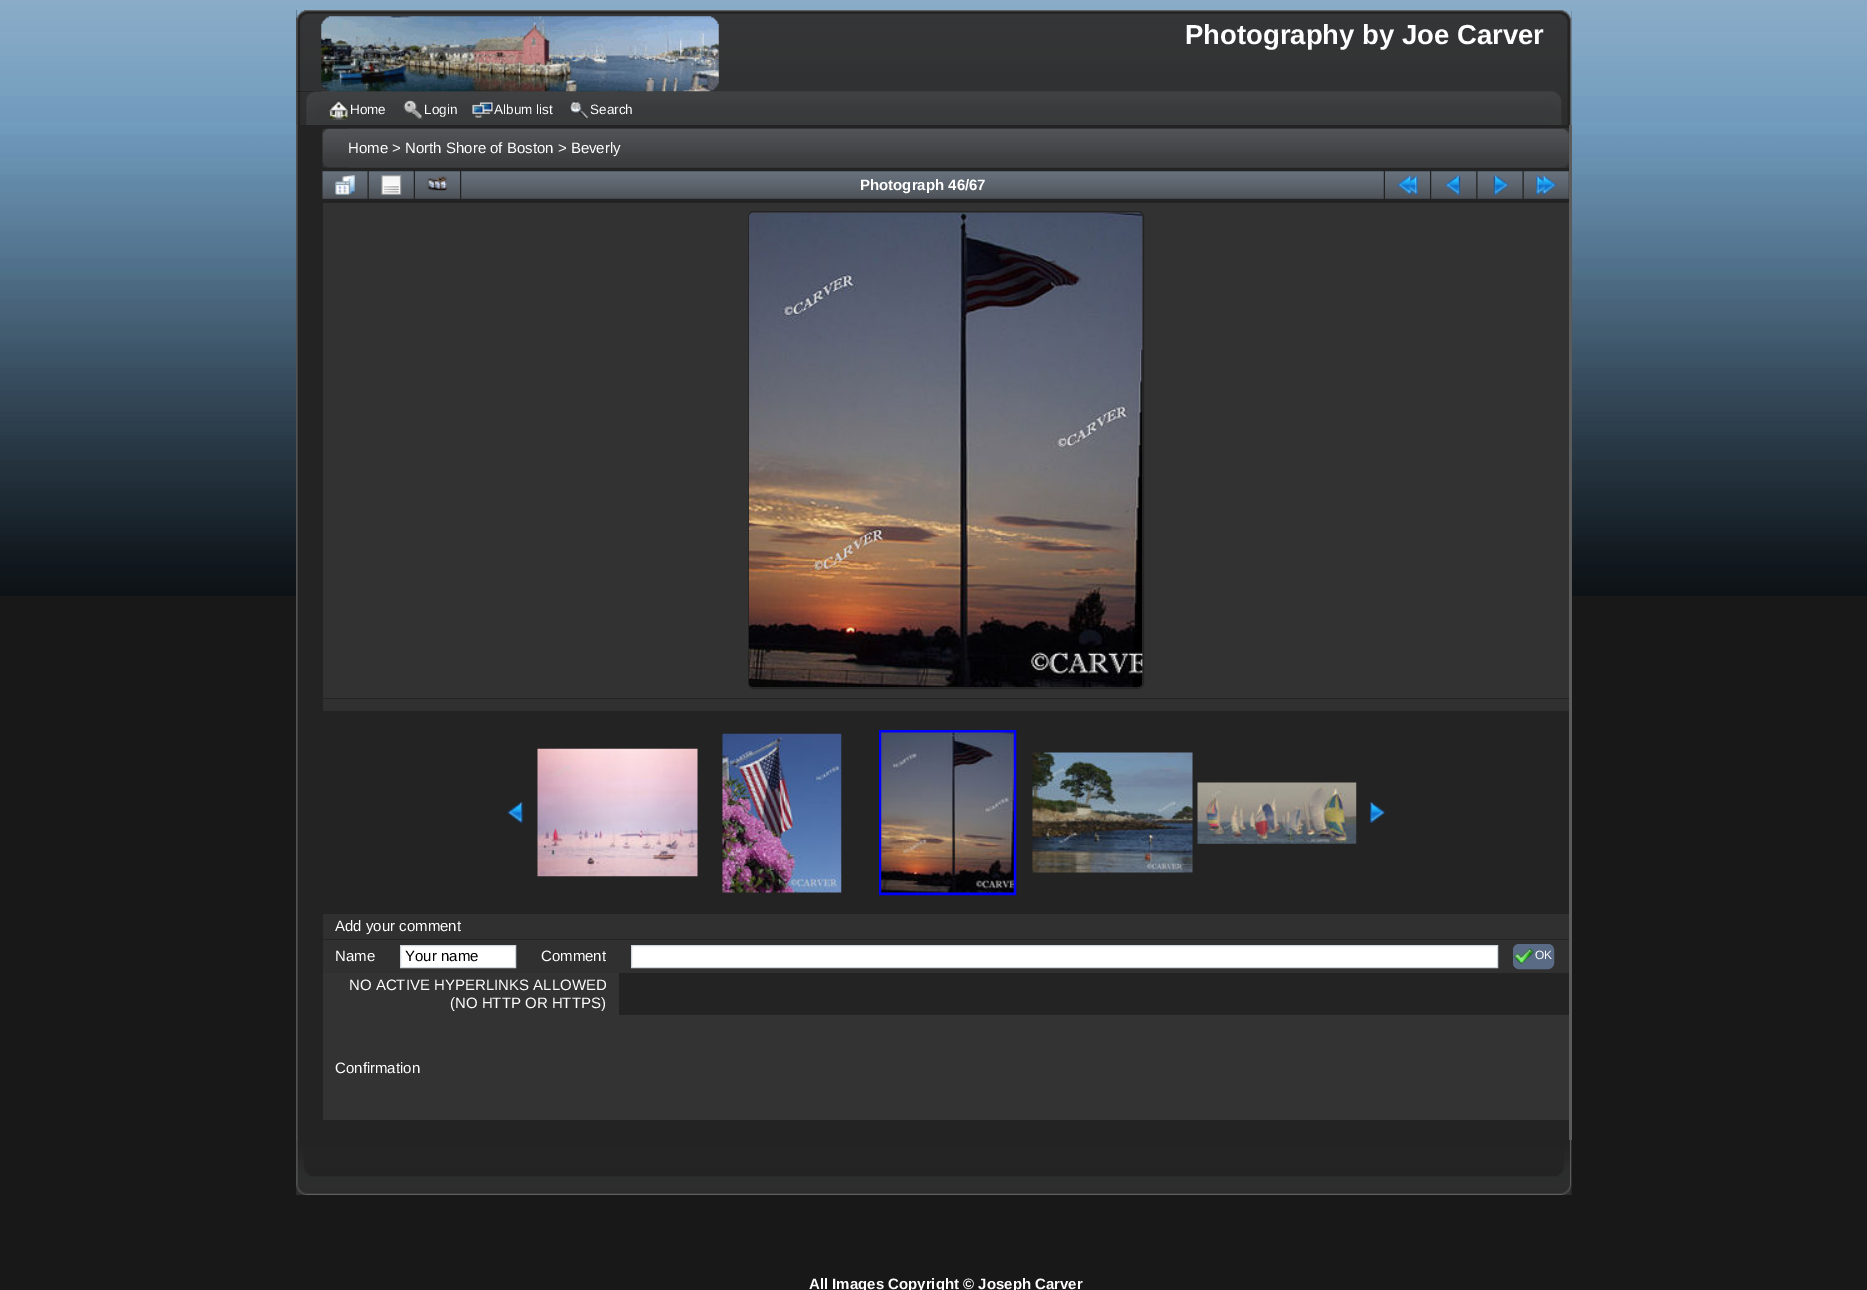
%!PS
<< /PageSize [1867 1290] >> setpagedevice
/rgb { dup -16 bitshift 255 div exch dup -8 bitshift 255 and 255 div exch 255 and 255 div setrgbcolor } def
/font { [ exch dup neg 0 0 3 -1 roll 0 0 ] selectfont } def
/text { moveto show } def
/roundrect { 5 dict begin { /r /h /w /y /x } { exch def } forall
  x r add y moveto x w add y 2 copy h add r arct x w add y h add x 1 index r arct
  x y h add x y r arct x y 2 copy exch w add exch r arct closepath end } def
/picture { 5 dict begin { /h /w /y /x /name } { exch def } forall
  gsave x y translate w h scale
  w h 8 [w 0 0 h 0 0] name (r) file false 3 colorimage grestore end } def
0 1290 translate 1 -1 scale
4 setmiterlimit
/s1 { /LiberationSans-Bold 27.5 font 16#FFFFFF rgb } def
/s2 { /LiberationSans-Regular 13.5 font 16#FFFFFF rgb } def
/s3 { /LiberationSans-Regular 15 font 16#FFFFFF rgb } def
/s4 { /LiberationSans-Bold 15 font 16#FFFFFF rgb } def
/s5 { /LiberationSans-Regular 15 font 16#000000 rgb } def
/s6 { /LiberationSans-Regular 12 font 16#FFFFFF rgb } def
16#181818 rgb
0 0 1867 1290 rectfill
(pic1.raw) 0 0 1867 596 picture
(pic2.raw) 296 10 1276 82 picture
(pic3.raw) 321 10 1251 82 picture
16#010101 rgb
296 91 1275 34 rectfill
(pic5.raw) 296 91 1276 34 picture
(pic6.raw) 321 91 1251 34 picture
(pic4.raw) 321 16 398 76 picture
s1
(Photography by Joe Carver) 1185 44 text
(pic7.raw) 328 100 21 20 picture
s2
(Home) 350 114 text
(pic8.raw) 403 100 20 20 picture
(Login) 424 114 text
(pic9.raw) 472 102 21 16 picture
(Album list) 494 114 text
(pic10.raw) 570 101 19 18 picture
(Search) 590 114 text
(pic11.raw) 296 125 1273 1015 picture
16#5B5B5B rgb
1569 125 3 1015 rectfill
(pic12.raw) 322 128 1247 40 picture
(pic13.raw) 347 128 1222 40 picture
s3
(Home > North Shore of Boston > Beverly) 348 153 text
(pic14.raw) 322 171 46 28 picture
(pic15.raw) 335 175 20 20 picture
(pic16.raw) 368 171 46 28 picture
(pic17.raw) 381 175 21 20 picture
(pic18.raw) 415 171 45 28 picture
(pic19.raw) 427 176 21 15 picture
(pic20.raw) 461 171 923 28 picture
s4
(Photograph 46/67) 860 190 text
(pic18.raw) 1385 171 45 28 picture
(pic21.raw) 1397 175 21 20 picture
(pic22.raw) 1431 171 46 28 picture
(pic23.raw) 1445 175 16 20 picture
(pic14.raw) 1477 171 46 28 picture
(pic24.raw) 1493 175 16 20 picture
(pic16.raw) 1523 171 46 28 picture
(pic25.raw) 1536 175 21 20 picture
16#323232 rgb
323 203 1246 495 rectfill
16#232323 rgb
748.5 211.5 395 477 5.5 roundrect stroke
(pic26.raw) 748 212 395 476 picture
16#303030 rgb
323 699 1246 12 rectfill
(pic27.raw) 507 802 16 21 picture
(pic28.raw) 537 748 161 129 picture
(pic29.raw) 722 733 120 160 picture
16#0000FF rgb
3 setlinewidth
880.5 731.5 134 162 rectstroke
(pic30.raw) 881 732 133 161 picture
(pic31.raw) 1032 752 161 121 picture
(pic32.raw) 1197 782 160 62 picture
(pic33.raw) 1369 802 17 21 picture
16#303030 rgb
323 914 1246 25 rectfill
s3
(Add your comment) 335 931 text
16#303030 rgb
323 940 1246 33 rectfill
s3
(Name) 335 961 text
400.5 945.5 moveto 515.5 945.5 lineto 515.5 967.5 lineto 400.5 967.5 lineto closepath gsave fill grestore
16#D1D7DC rgb
1 setlinewidth
stroke
s5
(Your name) 405 961 text
s3
(Comment) 541 961 text
631.5 945.5 moveto 1497.5 945.5 lineto 1497.5 967.5 lineto 631.5 967.5 lineto closepath gsave fill grestore
16#D1D7DC rgb
stroke
16#5A6C85 rgb
1513.5 944.5 40 24 5.5 roundrect gsave fill grestore
stroke
(pic34.raw) 1513 948 21 16 picture
s6
(OK) 1535 959 text
16#333333 rgb
323 973 296 147 rectfill
s3
(NO ACTIVE HYPERLINKS ALLOWED) 349 990 text
(\(NO HTTP OR HTTPS\)) 450 1008 text
(Confirmation) 335 1073 text
16#333333 rgb
619 1015 950 105 rectfill
(pic35.raw) 296 1140 1276 55 picture
(pic36.raw) 1557 1140 15 55 picture
s4
(All Images Copyright © Joseph Carver) 809 1289 text
showpage
